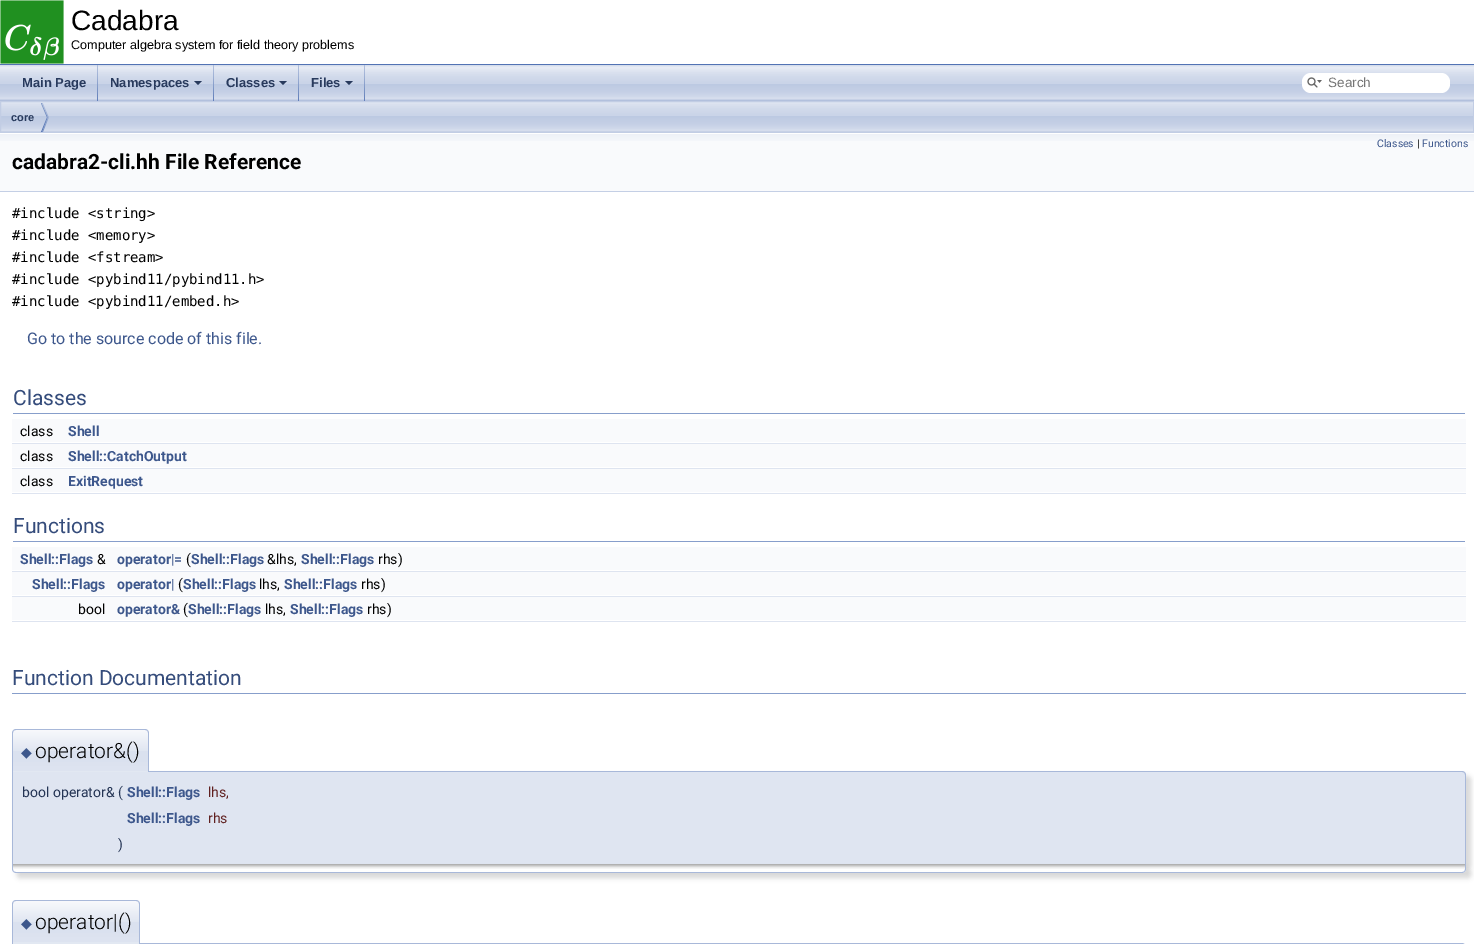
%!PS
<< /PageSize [1474 944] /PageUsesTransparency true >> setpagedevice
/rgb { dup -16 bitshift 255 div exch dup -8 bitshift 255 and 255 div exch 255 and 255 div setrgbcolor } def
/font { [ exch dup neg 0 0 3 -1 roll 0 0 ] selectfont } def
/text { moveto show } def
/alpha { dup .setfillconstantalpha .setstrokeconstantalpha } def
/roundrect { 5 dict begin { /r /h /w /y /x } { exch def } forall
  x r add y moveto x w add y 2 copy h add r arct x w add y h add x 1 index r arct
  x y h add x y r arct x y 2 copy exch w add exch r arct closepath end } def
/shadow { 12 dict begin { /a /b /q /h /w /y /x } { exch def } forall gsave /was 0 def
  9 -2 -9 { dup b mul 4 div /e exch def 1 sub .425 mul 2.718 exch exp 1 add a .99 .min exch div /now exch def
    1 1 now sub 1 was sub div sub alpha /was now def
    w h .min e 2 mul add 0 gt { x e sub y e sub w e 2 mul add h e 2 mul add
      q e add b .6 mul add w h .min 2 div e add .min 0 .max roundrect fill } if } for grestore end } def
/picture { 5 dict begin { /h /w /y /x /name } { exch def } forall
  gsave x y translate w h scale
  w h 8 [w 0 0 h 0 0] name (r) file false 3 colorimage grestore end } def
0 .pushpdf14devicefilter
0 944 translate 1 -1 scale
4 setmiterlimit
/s1 { /LiberationSans-Regular 28 font 16#000000 rgb } def
/s2 { /LiberationSans-Regular 12.6 font 16#000000 rgb } def
/s3 { /LiberationSans-Bold 13 font 16#283A5D rgb } def
/s4 { /LiberationSans-Regular 13.5 font 16#757575 rgb } def
/s5 { /LiberationSans-Bold 11 font 16#283A5D rgb } def
/s6 { /Roboto-Regular 10.5 font 16#3D578C rgb } def
/s7 { /Roboto-Regular 10.5 font 16#000000 rgb } def
/s8 { /Roboto-Bold 21 font 16#000000 rgb } def
/s9 { /DejaVuSansMono-Regular 14 font 16#000000 rgb } def
/s10 { /Roboto-Regular 16 font 16#3D578C rgb } def
/s11 { /Roboto-Regular 21 font 16#354C7B rgb } def
/s12 { /Roboto-Regular 14 font 16#000000 rgb } def
/s13 { /Roboto-Bold 14 font 16#3D578C rgb } def
/s14 { /DejaVuSans-Regular 14 font 16#3D578C rgb } def
/s15 { /Roboto-Light 21 font 16#000000 rgb } def
/s16 { /Roboto-Regular 14 font 16#253555 rgb } def
/s17 { /Roboto-Regular 14 font 16#602020 rgb } def
16#FFFFFF rgb
0 0 1474 944 rectfill
16#5373B4 rgb
0 64 1474 1 rectfill
(pic1.raw) 0 0 64 64 picture
s1
(Cadabra) 71 30 text
s2
(Computer algebra system for field theory problems) 71 49 text
(pic2.raw) 0 65 1474 36 picture
(pic3.raw) 97 65 1 36 picture
s3
(Main Page) 22 87 text
(pic3.raw) 213 65 1 36 picture
(Namespaces) 110 87 text
194 81 moveto 202 81 lineto 198 85 lineto closepath fill
(pic3.raw) 298 65 1 36 picture
(Classes) 226 87 text
279 81 moveto 287 81 lineto 283 85 lineto closepath fill
(pic3.raw) 364 65 1 36 picture
(Files) 311 87 text
345 81 moveto 353 81 lineto 349 85 lineto closepath fill
16#FFFFFF rgb
1302 73 148 20 9 roundrect fill
(pic4.raw) 1307 77 15 11 picture
s4
(Search) 1328 87 text
(pic5.raw) 1 102 1472 30 picture
16#C2CDE4 rgb
0.5 101.5 1473 31 rectstroke
(pic6.raw) 41 103 8 29 picture
s5
(core) 11 121 text
16#F9FAFC rgb
0 141 1474 50 rectfill
(pic7.raw) 0 133 1474 8 picture
16#C4CFE5 rgb
0 191 1474 1 rectfill
s6
(Classes) 1377 147 text
s7
(|) 1417 147 text
s6
(Functions) 1422 147 text
s8
(cadabra2-cli.hh File Reference) 12 169 text
s9
(#include <string>) 12 218 text
(#include <memory>) 12 240 text
(#include <fstream>) 12 262 text
(#include <pybind11/pybind11.h>) 12 284 text
(#include <pybind11/embed.h>) 12 306 text
s10
(Go to the source code of this file.) 27 344 text
16#879ECB rgb
13 413 1452 1 rectfill
s11
(Classes) 13 405 text
16#F9FAFC rgb
12 419 1454 23 rectfill
s12
(class) 20 436 text
s13
(Shell) 68 436 text
16#DEE4F0 rgb
12 443 1454 1 rectfill
16#F9FAFC rgb
12 444 1454 23 rectfill
s12
(class) 20 461 text
s13
(Shell::CatchOutput) 68 461 text
16#DEE4F0 rgb
12 468 1454 1 rectfill
16#F9FAFC rgb
12 469 1454 23 rectfill
s12
(class) 20 486 text
s13
(ExitRequest) 68 486 text
16#DEE4F0 rgb
12 493 1454 1 rectfill
16#879ECB rgb
13 541 1452 1 rectfill
s11
(Functions) 13 533 text
16#F9FAFC rgb
12 547 1454 23 rectfill
s13
(Shell::Flags) 20 564 text
s12
(&) 97 564 text
s13
(operator|=) 117 564 text
s12
(\() 186 564 text
s13
(Shell::Flags) 191 564 text
s12
(&lhs,) 267 564 text
s13
(Shell::Flags) 301 564 text
s12
(rhs\)) 378 564 text
16#DEE4F0 rgb
12 571 1454 1 rectfill
16#F9FAFC rgb
12 572 1454 23 rectfill
s13
(Shell::Flags) 32 589 text
(operator|) 117 589 text
s12
(\() 178 589 text
s13
(Shell::Flags) 183 589 text
s12
(lhs,) 259 589 text
s13
(Shell::Flags) 284 589 text
s12
(rhs\)) 361 589 text
16#DEE4F0 rgb
12 596 1454 1 rectfill
16#F9FAFC rgb
12 597 1454 23 rectfill
s12
(bool) 78 614 text
s13
(operator&) 117 614 text
s12
(\() 183 614 text
s13
(Shell::Flags) 188 614 text
s12
(lhs,) 265 614 text
s13
(Shell::Flags) 290 614 text
s12
(rhs\)) 367 614 text
16#DEE4F0 rgb
12 621 1454 1 rectfill
16#879ECB rgb
12 693 1454 1 rectfill
s11
(Function Documentation) 12 685 text
16#000000 rgb
17 776 1454 93 4 2.5 0.15 shadow
16#DFE5F1 rgb
12 771 moveto 1462 771 lineto 1464 771 1466 773 1466 775 curveto 1466 864 lineto 12 864 lineto closepath fill
16#A8B8D9 rgb
12 771 moveto 1462 771 lineto 1464 771 1466 773 1466 775 curveto 1466 864 lineto 12 864 lineto closepath 13 772 moveto 1462 772 lineto 1464 772 1465 773 1465 775 curveto 1465 864 lineto 13 864 lineto closepath eofill
16#E2E8F2 rgb
16 729 moveto 145 729 lineto 147 729 149 731 149 733 curveto 149 772 lineto 12 772 lineto 12 733 lineto 12 731 14 729 16 729 curveto closepath fill
(pic8.raw) 12 730 137 41 picture
16#A8B8D9 rgb
16 729 moveto 145 729 lineto 147 729 149 731 149 733 curveto 149 772 lineto 12 772 lineto 12 733 lineto 12 731 14 729 16 729 curveto closepath 16 730 moveto 145 730 lineto 147 730 148 731 148 733 curveto 148 772 lineto 13 772 lineto 13 733 lineto 13 731 14 730 16 730 curveto closepath eofill
s14
(◆) 21 757 text
s15
(operator&\(\)) 35 758 text
s16
(bool operator&) 22 797 text
(\() 118 797 text
s13
(Shell::Flags) 127 797 text
s17
(lhs,) 208 797 text
s13
(Shell::Flags) 127 823 text
s17
(rhs) 208 823 text
s16
(\)) 118 849 text
16#000000 rgb
17 869 1454 9 4 2.5 0.15 shadow
16#FFFFFF rgb
12 864 moveto 1466 864 lineto 1466 869 lineto 1466 871 1464 873 1462 873 curveto 16 873 lineto 14 873 12 871 12 869 curveto closepath fill
(pic9.raw) 13 864 1452 5 picture
16#A8B8D9 rgb
12 864 moveto 1466 864 lineto 1466 869 lineto 1466 871 1464 873 1462 873 curveto 16 873 lineto 14 873 12 871 12 869 curveto closepath 13 864 moveto 1465 864 lineto 1465 869 lineto 1465 871 1464 872 1462 872 curveto 16 872 lineto 14 872 13 871 13 869 curveto closepath eofill
12 943 moveto 1462 943 lineto 1464 943 1466 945 1466 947 curveto 1466 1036 lineto 12 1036 lineto closepath 13 944 moveto 1462 944 lineto 1464 944 1465 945 1465 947 curveto 1465 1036 lineto 13 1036 lineto closepath eofill
16#E2E8F2 rgb
16 900 moveto 136 900 lineto 138 900 140 902 140 904 curveto 140 944 lineto 12 944 lineto 12 904 lineto 12 902 14 900 16 900 curveto closepath fill
(pic10.raw) 12 901 128 41 picture
16#A8B8D9 rgb
16 900 moveto 136 900 lineto 138 900 140 902 140 904 curveto 140 944 lineto 12 944 lineto 12 904 lineto 12 902 14 900 16 900 curveto closepath 16 901 moveto 136 901 lineto 138 901 139 902 139 904 curveto 139 944 lineto 13 944 lineto 13 904 lineto 13 902 14 901 16 901 curveto closepath eofill
s14
(◆) 21 928 text
s15
(operator|\(\)) 35 929 text
.poppdf14devicefilter showpage
